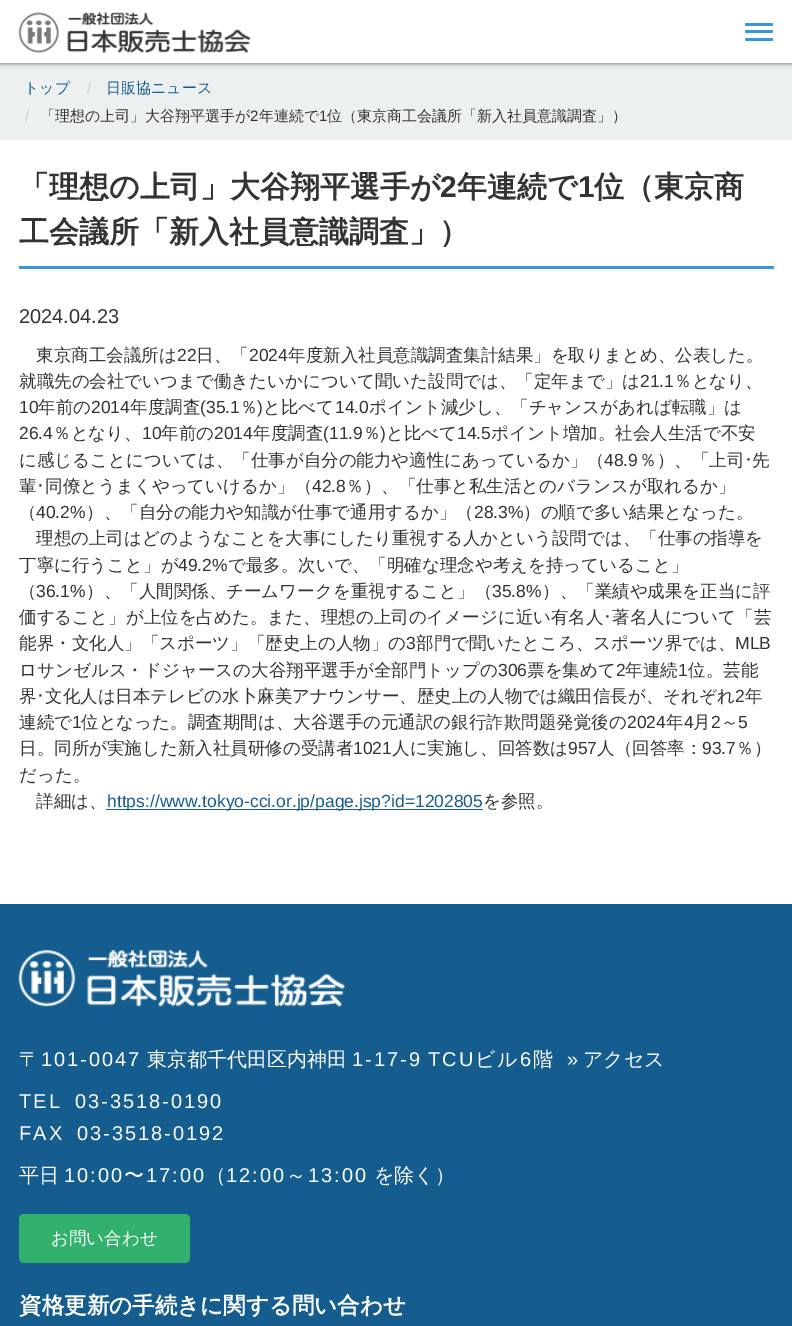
%!PS
<< /PageSize [792 1326] /PageUsesTransparency true >> setpagedevice
/rgb { dup -16 bitshift 255 div exch dup -8 bitshift 255 and 255 div exch 255 and 255 div setrgbcolor } def
/font { [ exch dup neg 0 0 3 -1 roll 0 0 ] selectfont } def
/text { moveto show } def
/alpha { dup .setfillconstantalpha .setstrokeconstantalpha } def
/roundrect { 5 dict begin { /r /h /w /y /x } { exch def } forall
  x r add y moveto x w add y 2 copy h add r arct x w add y h add x 1 index r arct
  x y h add x y r arct x y 2 copy exch w add exch r arct closepath end } def
/shadow { 12 dict begin { /a /b /q /h /w /y /x } { exch def } forall gsave /was 0 def
  9 -2 -9 { dup b mul 4 div /e exch def 1 sub .425 mul 2.718 exch exp 1 add a .99 .min exch div /now exch def
    1 1 now sub 1 was sub div sub alpha /was now def
    w h .min e 2 mul add 0 gt { x e sub y e sub w e 2 mul add h e 2 mul add
      q e add b .6 mul add w h .min 2 div e add .min 0 .max roundrect fill } if } for grestore end } def
/picture { 5 dict begin { /h /w /y /x /name } { exch def } forall
  gsave x y translate w h scale
  w h 8 [w 0 0 h 0 0] name (r) file false 3 colorimage grestore end } def
0 .pushpdf14devicefilter
0 1326 translate 1 -1 scale
4 setmiterlimit
/s1 { /WenQuanYiZenHei-Medium 15 font 16#145D8E rgb } def
/s2 { /LiberationSans-Regular 15 font 16#CCCCCC rgb } def
/s3 { /WenQuanYiZenHei-Medium 15 font 16#333333 rgb } def
/s4 { /LiberationSans-Regular 15 font 16#333333 rgb } def
/s5 { /WenQuanYiZenHei-Bold 30 font 16#333333 rgb } def
/s6 { /LiberationSans-Bold 30 font 16#333333 rgb } def
/s7 { /LiberationSans-Regular 20 font 16#333333 rgb } def
/s8 { /WenQuanYiZenHei-Medium 17.5 font 16#333333 rgb } def
/s9 { /LiberationSans-Regular 17.5 font 16#333333 rgb } def
/s10 { /IPAPGothic-Regular 17.5 font 16#333333 rgb } def
/s11 { /LiberationSans-Regular 17.5 font 16#145D8E rgb } def
/s12 { /WenQuanYiZenHei-Medium 20 font 16#FFFFFF rgb } def
/s13 { /LiberationSans-Regular 20 font 16#FFFFFF rgb } def
/s14 { /WenQuanYiZenHei-Medium 17.5 font 16#FFFFFF rgb } def
/s15 { /WenQuanYiZenHei-Bold 22.5 font 16#FFFFFF rgb } def
16#FFFFFF rgb
0 0 792 1326 rectfill
16#ECF0F1 rgb
0 63 792 77 rectfill
16#323232 rgb
0 0 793 63 0 2.5 0.75 shadow
16#FFFFFF rgb
0 0 792 63 rectfill
(pic1.raw) 18 12 233 41 picture
16#3498DB rgb
745 23 28 3 1.5 roundrect fill
745 30 28 3 1.5 roundrect fill
745 38 28 3 1.5 roundrect fill
s1
(トップ) 24 93 text
s2
(/) 87 93 text
s1
(日販協ニュース) 106 93 text
s2
(/) 25 121 text
s3
(「理想の上司」大谷翔平選手が) 40 121 text
s4
(2) 250 121 text
s3
(年連続で) 259 121 text
s4
(1) 319 121 text
s3
(位（東京商工会議所「新入社員意識調査」）) 327 121 text
16#3498DB rgb
19 266 755 3 rectfill
s5
(「理想の上司」大谷翔平選手が) 19 197 text
s6
(2) 440 197 text
s5
(年連続で) 457 197 text
s6
(1) 578 197 text
s5
(位（東京商) 594 197 text
(工会議所「新入社員意識調査」）) 19 242 text
s7
(2024.04.23) 19 323 text
s8
(東京商工会議所は) 36 361 text
s9
(22) 177 361 text
s8
(日、「) 196 361 text
s9
(2024) 249 361 text
s8
(年度新入社員意識調査集計結果」を取りまとめ、公表した。) 288 361 text
(就職先の会社でいつまで働きたいかについて聞いた設問では、「定年まで」は) 19 387 text
s9
(21.1) 640 387 text
s8
(％となり、) 674 387 text
s9
(10) 19 413 text
s8
(年前の) 38 413 text
s9
(2014) 91 413 text
s8
(年度調査) 130 413 text
s9
(\(35.1) 200 413 text
s8
(％) 240 413 text
s9
(\)) 257 413 text
s8
(と比べて) 263 413 text
s9
(14.0) 335 413 text
s8
(ポイント減少し、「チャンスがあれば転職」は) 369 413 text
s9
(26.4) 19 439 text
s8
(％となり、) 53 439 text
s9
(10) 142 439 text
s8
(年前の) 161 439 text
s9
(2014) 214 439 text
s8
(年度調査) 253 439 text
s9
(\(11.9) 323 439 text
s8
(％) 363 439 text
s9
(\)) 380 439 text
s8
(と比べて) 386 439 text
s9
(14.5) 457 439 text
s8
(ポイント増加。社会人生活で不安) 491 439 text
(に感じることについては、「仕事が自分の能力や適性にあっているか」（) 19 466 text
s9
(48.9) 604 466 text
s8
(％）、「上司) 639 466 text
s10
(･) 744 466 text
s8
(先) 752 466 text
(輩) 19 492 text
s10
(･) 36 492 text
s8
(同僚とうまくやっていけるか」（) 45 492 text
s9
(42.8) 312 492 text
s8
(％）、「仕事と私生活とのバランスが取れるか」) 346 492 text
(（) 19 518 text
s9
(40.2%) 36 518 text
s8
(）、「自分の能力や知識が仕事で通用するか」（) 86 518 text
s9
(28.3%) 474 518 text
s8
(）の順で多い結果となった。) 523 518 text
(理想の上司はどのようなことを大事にしたり重視する人かという設問では、「仕事の指導を) 36 544 text
(丁寧に行うこと」が) 19 571 text
s9
(49.2%) 178 571 text
s8
(で最多。次いで、「明確な理念や考えを持っていること」) 228 571 text
(（) 19 597 text
s9
(36.1%) 36 597 text
s8
(）、「人間関係、チームワークを重視すること」（) 86 597 text
s9
(35.8%) 492 597 text
s8
(）、「業績や成果を正当に評) 542 597 text
(価すること」が上位を占めた。また、理想の上司のイメージに近い有名人) 19 623 text
s10
(･) 603 623 text
s8
(著名人について「芸) 612 623 text
(能界・文化人」「スポーツ」「歴史上の人物」の) 19 649 text
s9
(3) 406 649 text
s8
(部門で聞いたところ、スポーツ界では、) 416 649 text
s9
(MLB) 735 649 text
s8
(ロサンゼルス・ドジャースの大谷翔平選手が全部門トップの) 19 676 text
s9
(306) 498 676 text
s8
(票を集めて) 527 676 text
s9
(2) 616 676 text
s8
(年連続) 625 676 text
s9
(1) 678 676 text
s8
(位。芸能) 688 676 text
(界) 19 702 text
s10
(･) 36 702 text
s8
(文化人は日本テレビの水卜麻美アナウンサー、歴史上の人物では織田信長が、それぞれ) 45 702 text
s9
(2) 735 702 text
s8
(年) 745 702 text
(連続で) 19 728 text
s9
(1) 72 728 text
s8
(位となった。調査期間は、大谷選手の元通訳の銀行詐欺問題発覚後の) 81 728 text
s9
(2024) 627 728 text
s8
(年) 666 728 text
s9
(4) 684 728 text
s8
(月) 693 728 text
s9
(2) 711 728 text
s8
(～) 721 728 text
s9
(5) 738 728 text
s8
(日。同所が実施した新入社員研修の受講者) 19 754 text
s9
(1021) 353 754 text
s8
(人に実施し、回答数は) 392 754 text
s9
(957) 568 754 text
s8
(人（回答率：) 597 754 text
s9
(93.7) 702 754 text
s8
(％）) 736 754 text
(だった。) 19 781 text
(詳細は、) 36 807 text
16#145D8E rgb
106 809 377 1 rectfill
s11
(https://www.tokyo-cci.or.jp/page.jsp?id=1202805) 107 807 text
s8
(を参照。) 483 807 text
16#145D8E rgb
0 904 792 422 rectfill
(pic2.raw) 18 950 327 57 picture
/WenQuanYiZenHei-Medium 20 font
16#FFFFFF rgb
19 1066 moveto 2 0 (〒) ashow
/LiberationSans-Regular 20 font
41 1066 moveto 2 0 (101-0047) ashow
s12
(東京都千代田区内神田) 147 1066 text
/LiberationSans-Regular 20 font
352 1066 moveto 2 0 (1-17-9) ashow
428 1066 moveto 2 0 (TCU) ashow
/WenQuanYiZenHei-Medium 20 font
475 1066 moveto 2 0 (ビル) ashow
/LiberationSans-Regular 20 font
520 1066 moveto 2 0 (6) ashow
/WenQuanYiZenHei-Medium 20 font
533 1066 moveto 2 0 (階) ashow
s13
(») 567 1066 text
s12
(アクセス) 583 1066 text
/LiberationSans-Regular 20 font
19 1108 moveto 2 0 (TEL) ashow
75 1108 moveto 2 0 (03-3518-0190) ashow
19 1140 moveto 2 0 (FAX) ashow
77 1140 moveto 2 0 (03-3518-0192) ashow
s12
(平日) 19 1182 text
/LiberationSans-Regular 20 font
64 1182 moveto 2 0 (10:00) ashow
/WenQuanYiZenHei-Medium 20 font
124 1182 moveto 2 0 (〜) ashow
/LiberationSans-Regular 20 font
146 1182 moveto 2 0 (17:00) ashow
s12
(（) 206 1182 text
/LiberationSans-Regular 20 font
226 1182 moveto 2 0 (12:00) ashow
/WenQuanYiZenHei-Medium 20 font
286 1182 moveto 2 0 (～) ashow
/LiberationSans-Regular 20 font
308 1182 moveto 2 0 (13:00) ashow
s12
(を除く）) 374 1182 text
16#32B16C rgb
19 1214 171 49 5 roundrect fill
s14
(お問い合わせ) 51 1244 text
s15
(資格更新の手続きに関する問い合わせ) 19 1313 text
.poppdf14devicefilter showpage
